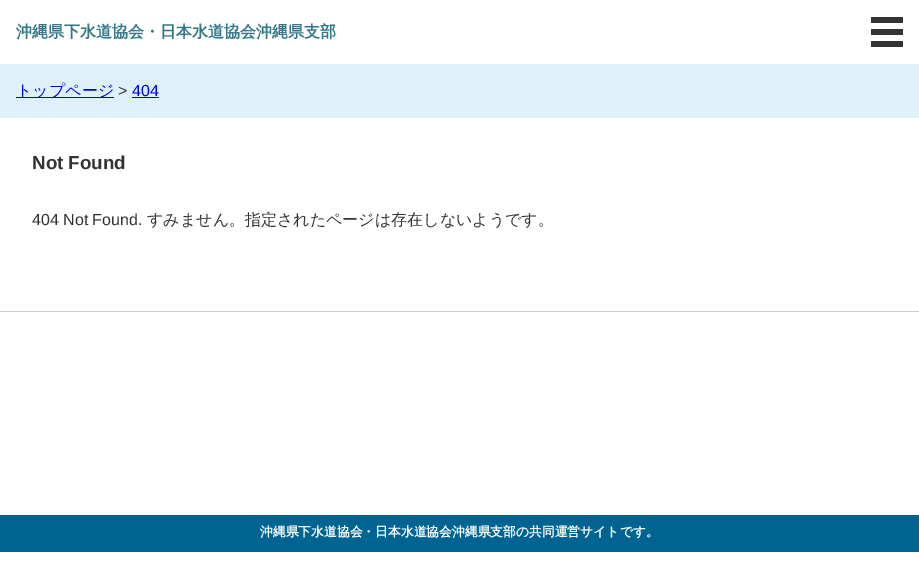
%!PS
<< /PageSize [919 576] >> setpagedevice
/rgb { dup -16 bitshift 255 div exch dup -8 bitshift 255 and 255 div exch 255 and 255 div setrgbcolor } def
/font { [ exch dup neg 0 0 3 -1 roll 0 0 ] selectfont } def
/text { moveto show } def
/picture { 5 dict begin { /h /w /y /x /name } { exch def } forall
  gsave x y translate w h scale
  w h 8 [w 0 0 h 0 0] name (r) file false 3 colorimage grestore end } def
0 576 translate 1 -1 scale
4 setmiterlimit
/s1 { /WenQuanYiZenHei-Bold 16 font 16#337788 rgb } def
/s2 { /WenQuanYiZenHei-Medium 16 font 16#0000EE rgb } def
/s3 { /LiberationSans-Regular 16 font 16#333333 rgb } def
/s4 { /LiberationSans-Regular 16 font 16#0000EE rgb } def
/s5 { /LiberationSans-Bold 18.75 font 16#333333 rgb } def
/s6 { /WenQuanYiZenHei-Medium 16 font 16#333333 rgb } def
/s7 { /WenQuanYiZenHei-Bold 12.8 font 16#FFFFFF rgb } def
16#FFFFFF rgb
0 0 919 576 rectfill
s1
(沖縄県下水道協会・日本水道協会沖縄県支部) 16 37 text
(pic1.raw) 871 17 32 30 picture
16#DEF1FA rgb
0 64 919 54 rectfill
16#0000EE rgb
16 97 98 1 rectfill
s2
(トップページ) 16 96 text
s3
(>) 118 96 text
s4
(404) 132 96 text
132 97 27 1 rectfill
16#CCCCCC rgb
0 311 919 1 rectfill
s5
(Not Found) 32 169 text
s3
(404 Not Found.) 32 225 text
s6
(すみません。指定されたページは存在しないようです。) 147 225 text
16#006493 rgb
0 515 919 37 rectfill
s7
(沖縄県下水道協会・日本水道協会沖縄県支部の共同運営サイトです。) 260 536 text
showpage
